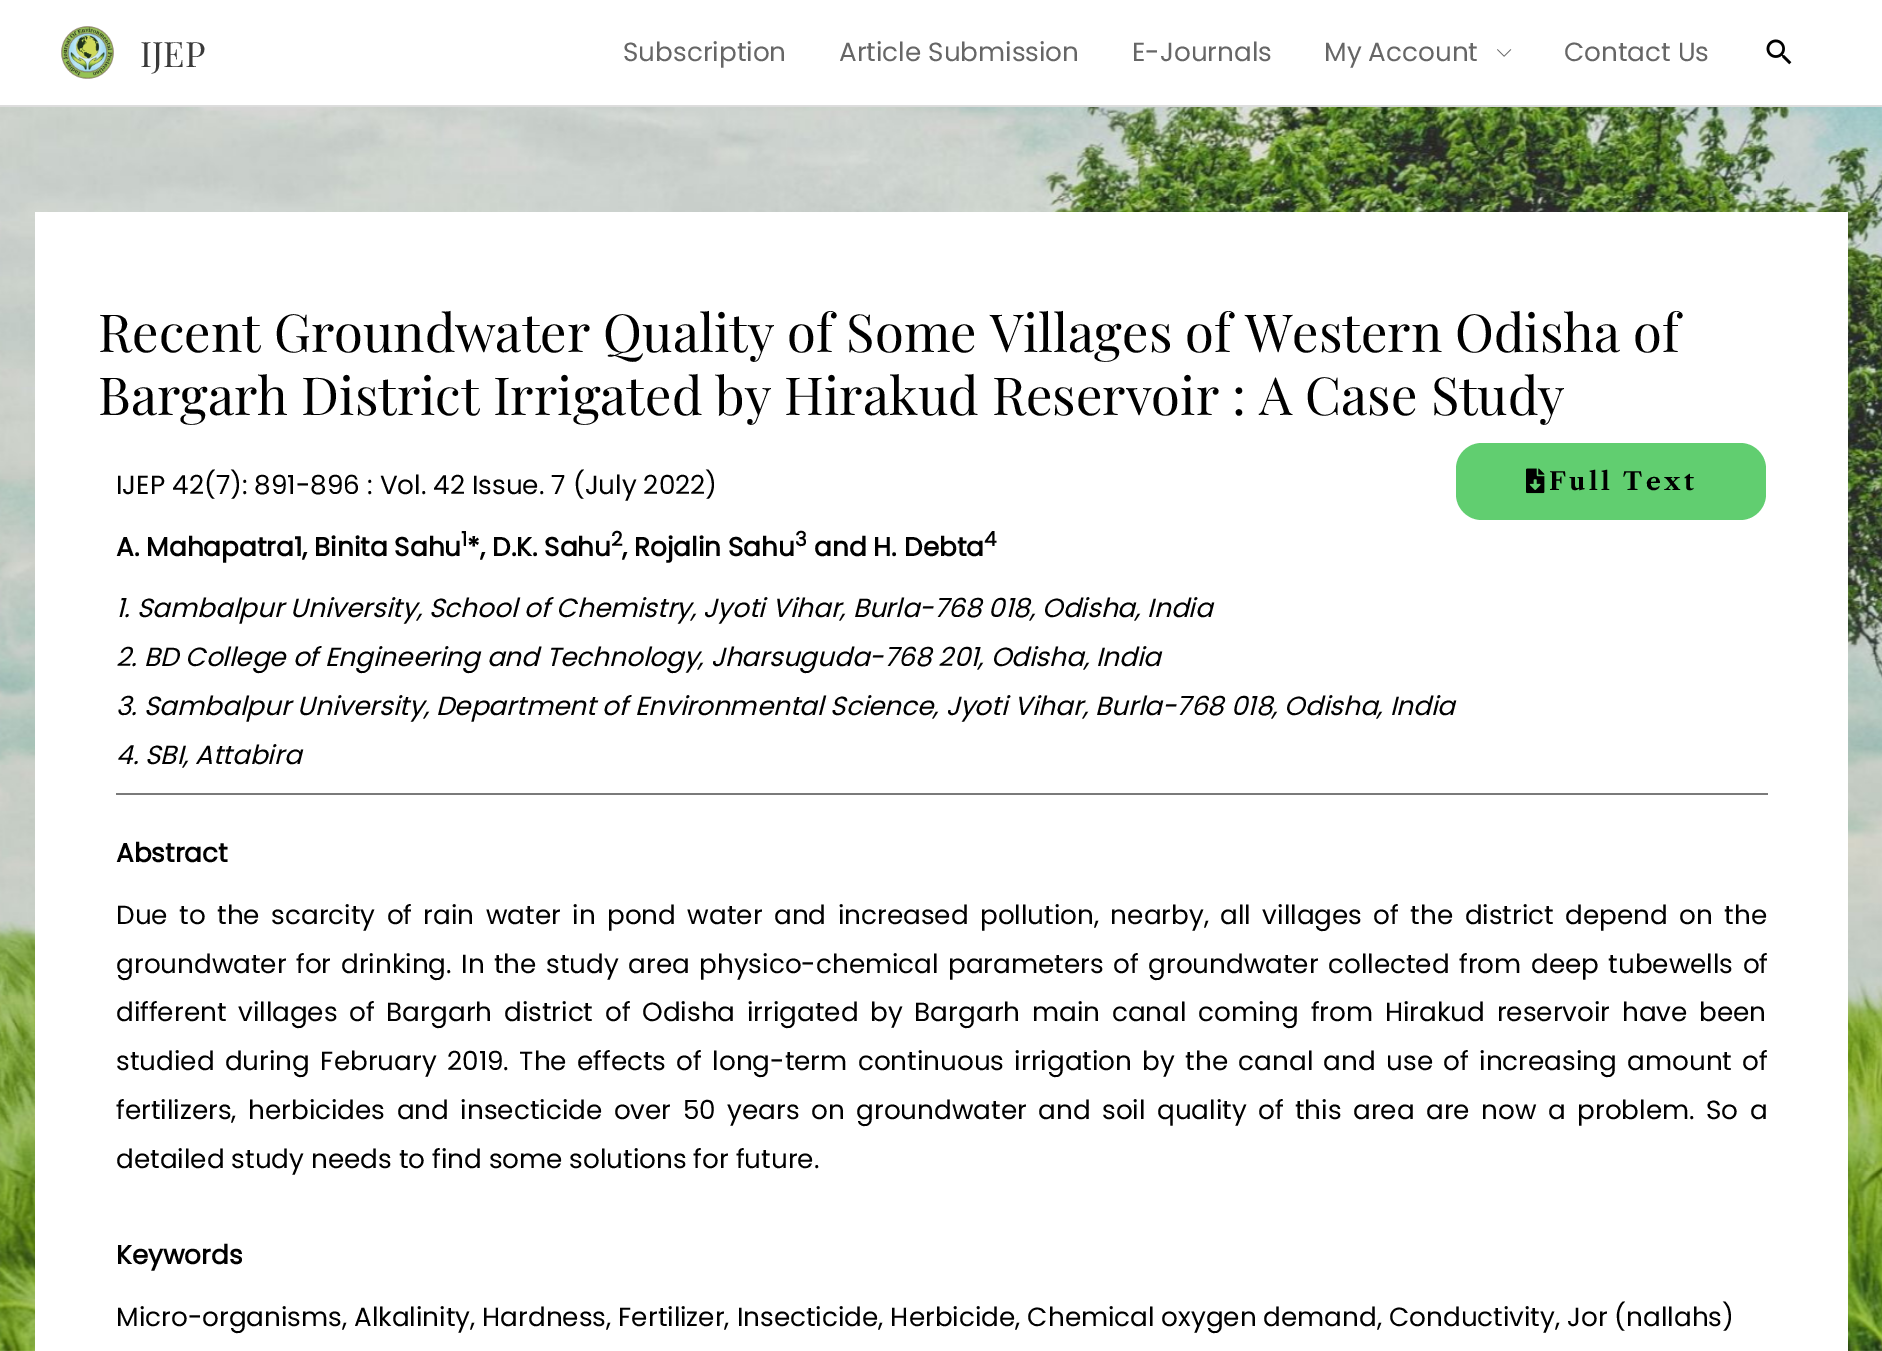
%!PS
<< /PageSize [1882 1351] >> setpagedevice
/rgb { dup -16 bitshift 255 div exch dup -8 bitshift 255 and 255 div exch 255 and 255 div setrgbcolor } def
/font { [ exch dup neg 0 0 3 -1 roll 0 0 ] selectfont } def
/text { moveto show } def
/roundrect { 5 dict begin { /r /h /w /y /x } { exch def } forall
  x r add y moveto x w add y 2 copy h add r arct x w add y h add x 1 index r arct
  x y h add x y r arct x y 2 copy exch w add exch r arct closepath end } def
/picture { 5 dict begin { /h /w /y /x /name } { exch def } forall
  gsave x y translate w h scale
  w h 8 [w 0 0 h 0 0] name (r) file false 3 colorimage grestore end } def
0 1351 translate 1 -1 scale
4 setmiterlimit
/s1 { /PlayfairDisplay-Regular 35 font 16#3A3A3A rgb } def
/s2 { /Poppins-Regular 26.25 font 16#666666 rgb } def
/s3 { /PlayfairDisplay-Regular 52.5 font 16#000000 rgb } def
/s4 { /Poppins-Regular 26.25 font 16#000000 rgb } def
/s5 { /Poppins-Bold 26.25 font 16#000000 rgb } def
/s6 { /Poppins-Bold 20 font 16#000000 rgb } def
/s7 { /Poppins-Italic 26.25 font 16#000000 rgb } def
16#FFFFFF rgb
0 0 1882 1351 rectfill
(pic1.raw) 0 107 1882 1244 picture
16#DDDDDD rgb
0 105 1882 2 rectfill
(pic2.raw) 61 26 53 53 picture
s1
(IJEP) 140 67 text
s2
(Subscription) 623 61 text
(Article Submission) 839 61 text
(E-Journals) 1132 61 text
(My Account) 1324 61 text
(pic3.raw) 1497 49 15 8 picture
(Contact Us) 1564 61 text
(pic4.raw) 1766 39 26 26 picture
16#FFFFFF rgb
35 212 1813 1139 rectfill
s3
(Recent Groundwater Quality of Some Villages of Western Odisha of) 98 352 text
(Bargarh District Irrigated by Hirakud Reservoir : A Case Study) 98 415 text
s4
(IJEP 42\(7\): 891-896 : Vol. 42 Issue. 7 \(July 2022\)) 116 494 text
16#61CE70 rgb
1456 443 310 77 26 roundrect fill
(pic5.raw) 1526 468 19 26 picture
/LibreCaslonText-Bold 24.5 font
16#000000 rgb
1549 490 moveto 3.5 0 (Full Text) ashow
s5
(A. Mahapatra1, Binita Sahu) 116 556 text
s6
(1) 461 546 text
s5
(*, D.K. Sahu) 467 556 text
s6
(2) 611 546 text
s5
(, Rojalin Sahu) 622 556 text
s6
(3) 795 546 text
s5
(and H. Debta) 814 556 text
s6
(4) 984 546 text
s7
(1. Sambalpur University, School of Chemistry, Jyoti Vihar, Burla-768 018, Odisha, India) 116 617 text
(2. BD College of Engineering and Technology, Jharsuguda-768 201, Odisha, India) 116 666 text
(3. Sambalpur University, Department of Environmental Science, Jyoti Vihar, Burla-768 018, Odisha, India) 116 715 text
(4. SBI, Attabira) 116 764 text
16#7A7A7A rgb
116 793 1652 2 rectfill
s5
(Abstract) 116 862 text
/Poppins-Regular 26.25 font
116 924 moveto 4.5 0 32 (Due to the scarcity of rain water in pond water and increased pollution, nearby, all villages of the district depend on the) widthshow
116 973 moveto 2.5 0 32 (groundwater for drinking. In the study area physico-chemical parameters of groundwater collected from deep tubewells of) widthshow
116 1021 moveto 4.75 0 32 (different villages of Bargarh district of Odisha irrigated by Bargarh main canal coming from Hirakud reservoir have been) widthshow
116 1070 moveto 3.4 0 32 (studied during February 2019. The effects of long-term continuous irrigation by the canal and use of increasing amount of) widthshow
116 1119 moveto 4.5 0 32 (fertilizers, herbicides and insecticide over 50 years on groundwater and soil quality of this area are now a problem. So a) widthshow
(detailed study needs to find some solutions for future.) 116 1168 text
s5
(Keywords) 116 1264 text
s4
(Micro-organisms, Alkalinity, Hardness, Fertilizer, Insecticide, Herbicide, Chemical oxygen demand, Conductivity, Jor \(nallahs\)) 116 1326 text
showpage
